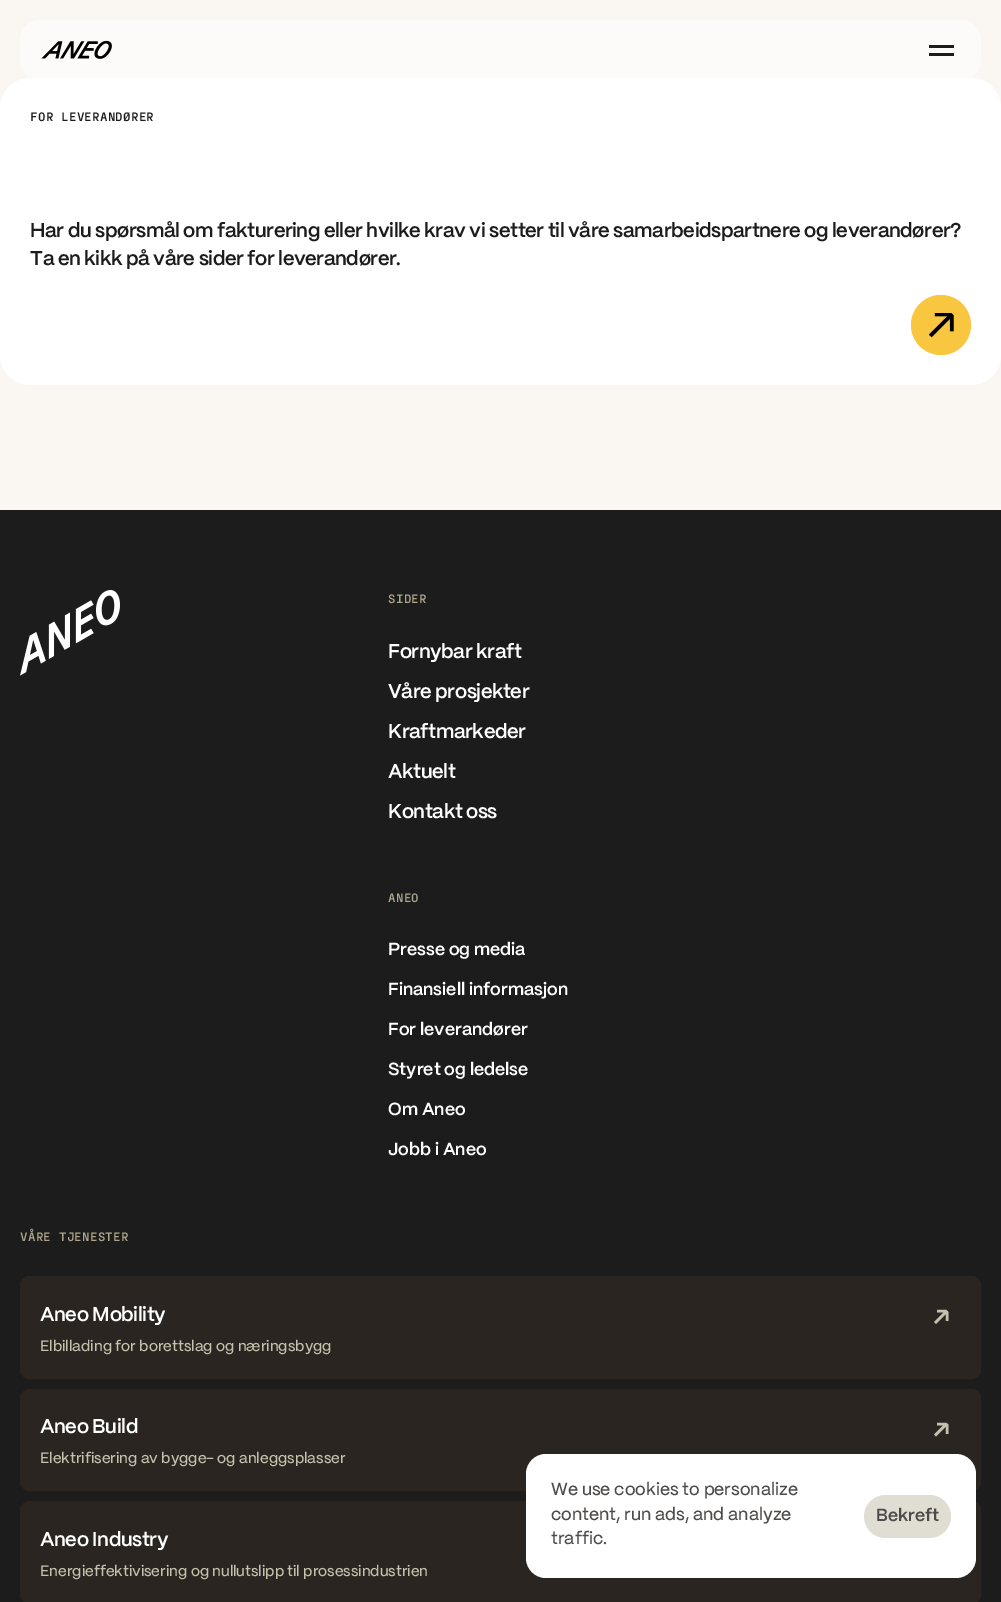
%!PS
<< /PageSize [1001 1602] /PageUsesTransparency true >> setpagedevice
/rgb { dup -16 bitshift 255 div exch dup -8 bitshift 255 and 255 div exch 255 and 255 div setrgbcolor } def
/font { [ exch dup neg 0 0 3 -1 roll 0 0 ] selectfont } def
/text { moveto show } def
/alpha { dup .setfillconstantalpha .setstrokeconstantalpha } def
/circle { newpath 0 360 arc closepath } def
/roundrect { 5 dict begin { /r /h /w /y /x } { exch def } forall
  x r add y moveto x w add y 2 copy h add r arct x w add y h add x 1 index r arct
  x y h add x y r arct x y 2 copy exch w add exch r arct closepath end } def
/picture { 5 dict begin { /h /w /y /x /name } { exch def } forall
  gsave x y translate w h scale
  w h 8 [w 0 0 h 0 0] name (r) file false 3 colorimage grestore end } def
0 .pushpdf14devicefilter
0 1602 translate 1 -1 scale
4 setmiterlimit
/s1 { /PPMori-SemiBold 17.5 font 16#FFFFFF rgb } def
/s2 { /PPMori-Medium 15 font 16#C5C1AC rgb } def
/s3 { /PPMori-Medium 17.5 font 16#4D4B49 rgb } def
/s4 { /PPMori-SemiBold 17.5 font 16#4D4B49 rgb } def
16#FAF6F2 rgb
0 0 1001 1602 rectfill
16#FFFFFF rgb
0 78 1001 307 30 roundrect fill
0.5 alpha
20 20 961 60 20 roundrect fill
1 alpha
(pic1.raw) 41 40 71 19 picture
16#1C1C1C rgb
929 45 25 3 rectfill
929 53 25 3 rectfill
/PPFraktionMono-Bold 12.5 font
30 121 moveto 0.25 0 (FOR LEVERANDØRER) ashow
/PPMori-SemiBold 20 font
30 237 moveto -0.4 0 (Har du spørsmål om fakturering eller hvilke krav vi setter til våre samarbeidspartnere og leverandører?) ashow
30 265 moveto -0.4 0 (Ta en kikk på våre sider for leverandører.) ashow
16#F9C640 rgb
941 325 30 circle fill
(pic2.raw) 929 313 25 25 picture
16#1C1C1C rgb
0 510 1001 1092 rectfill
(pic3.raw) 20 590 100 86 picture
/PPFraktionMono-Bold 12.5 font
16#ACA48B rgb
388 603 moveto 0.25 0 (SIDER) ashow
/PPMori-SemiBold 20 font
16#FFFFFF rgb
388 658 moveto -0.4 0 (Fornybar kraft) ashow
388 698 moveto -0.4 0 (Våre prosjekter) ashow
388 738 moveto -0.4 0 (Kraftmarkeder) ashow
388 778 moveto -0.4 0 (Aktuelt) ashow
388 818 moveto -0.4 0 (Kontakt oss) ashow
/PPFraktionMono-Bold 12.5 font
16#ACA48B rgb
388 902 moveto 0.25 0 (ANEO) ashow
s1
(Presse og media) 388 955 text
(Finansiell informasjon) 388 995 text
(For leverandører) 388 1035 text
(Styret og ledelse) 388 1075 text
(Om Aneo) 388 1115 text
(Jobb i Aneo) 388 1155 text
/PPFraktionMono-Bold 12.5 font
16#ACA48B rgb
20 1241 moveto 0.25 0 (VÅRE TJENESTER) ashow
16#2A2520 rgb
20 1276 961 103 10 roundrect fill
20.5 1276.5 960 102 9.5 roundrect stroke
/PPMori-SemiBold 20 font
16#FFFFFF rgb
40 1321 moveto -0.4 0 (Aneo Mobility) ashow
16#C5C1AC rgb
2.5 setlinewidth
937 1311 moveto 945.5 1311 lineto 947 1312.5 lineto 947 1321 lineto 946 1312 moveto 935 1323 lineto stroke
s2
(Elbillading for borettslag og næringsbygg) 40 1351 text
16#2A2520 rgb
20 1389 961 102 10 roundrect fill
1 setlinewidth
20.5 1389.5 960 101 9.5 roundrect stroke
/PPMori-SemiBold 20 font
16#FFFFFF rgb
40 1433 moveto -0.4 0 (Aneo Build) ashow
16#C5C1AC rgb
2.5 setlinewidth
937 1424 moveto 945.5 1424 lineto 947 1425 lineto 947 1434 lineto 946 1424.5 moveto 935 1435.5 lineto stroke
s2
(Elektrifisering av bygge- og anleggsplasser) 40 1463 text
16#2A2520 rgb
20 1501 961 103 10 roundrect fill
1 setlinewidth
20.5 1501.5 960 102 9.5 roundrect stroke
/PPMori-SemiBold 20 font
16#FFFFFF rgb
40 1546 moveto -0.4 0 (Aneo Industry) ashow
s2
(Energieffektivisering og nullutslipp til prosessindustrien) 40 1576 text
16#FFFFFF rgb
526 1454 450 124 20 roundrect fill
s3
(We use cookies to personalize) 551 1495 text
(content, run ads, and analyze) 551 1520 text
(traffic.) 551 1544 text
16#E0DED3 rgb
864 1495 87 43 21.5 roundrect fill
s4
(Bekreft) 876 1521 text
.poppdf14devicefilter showpage
